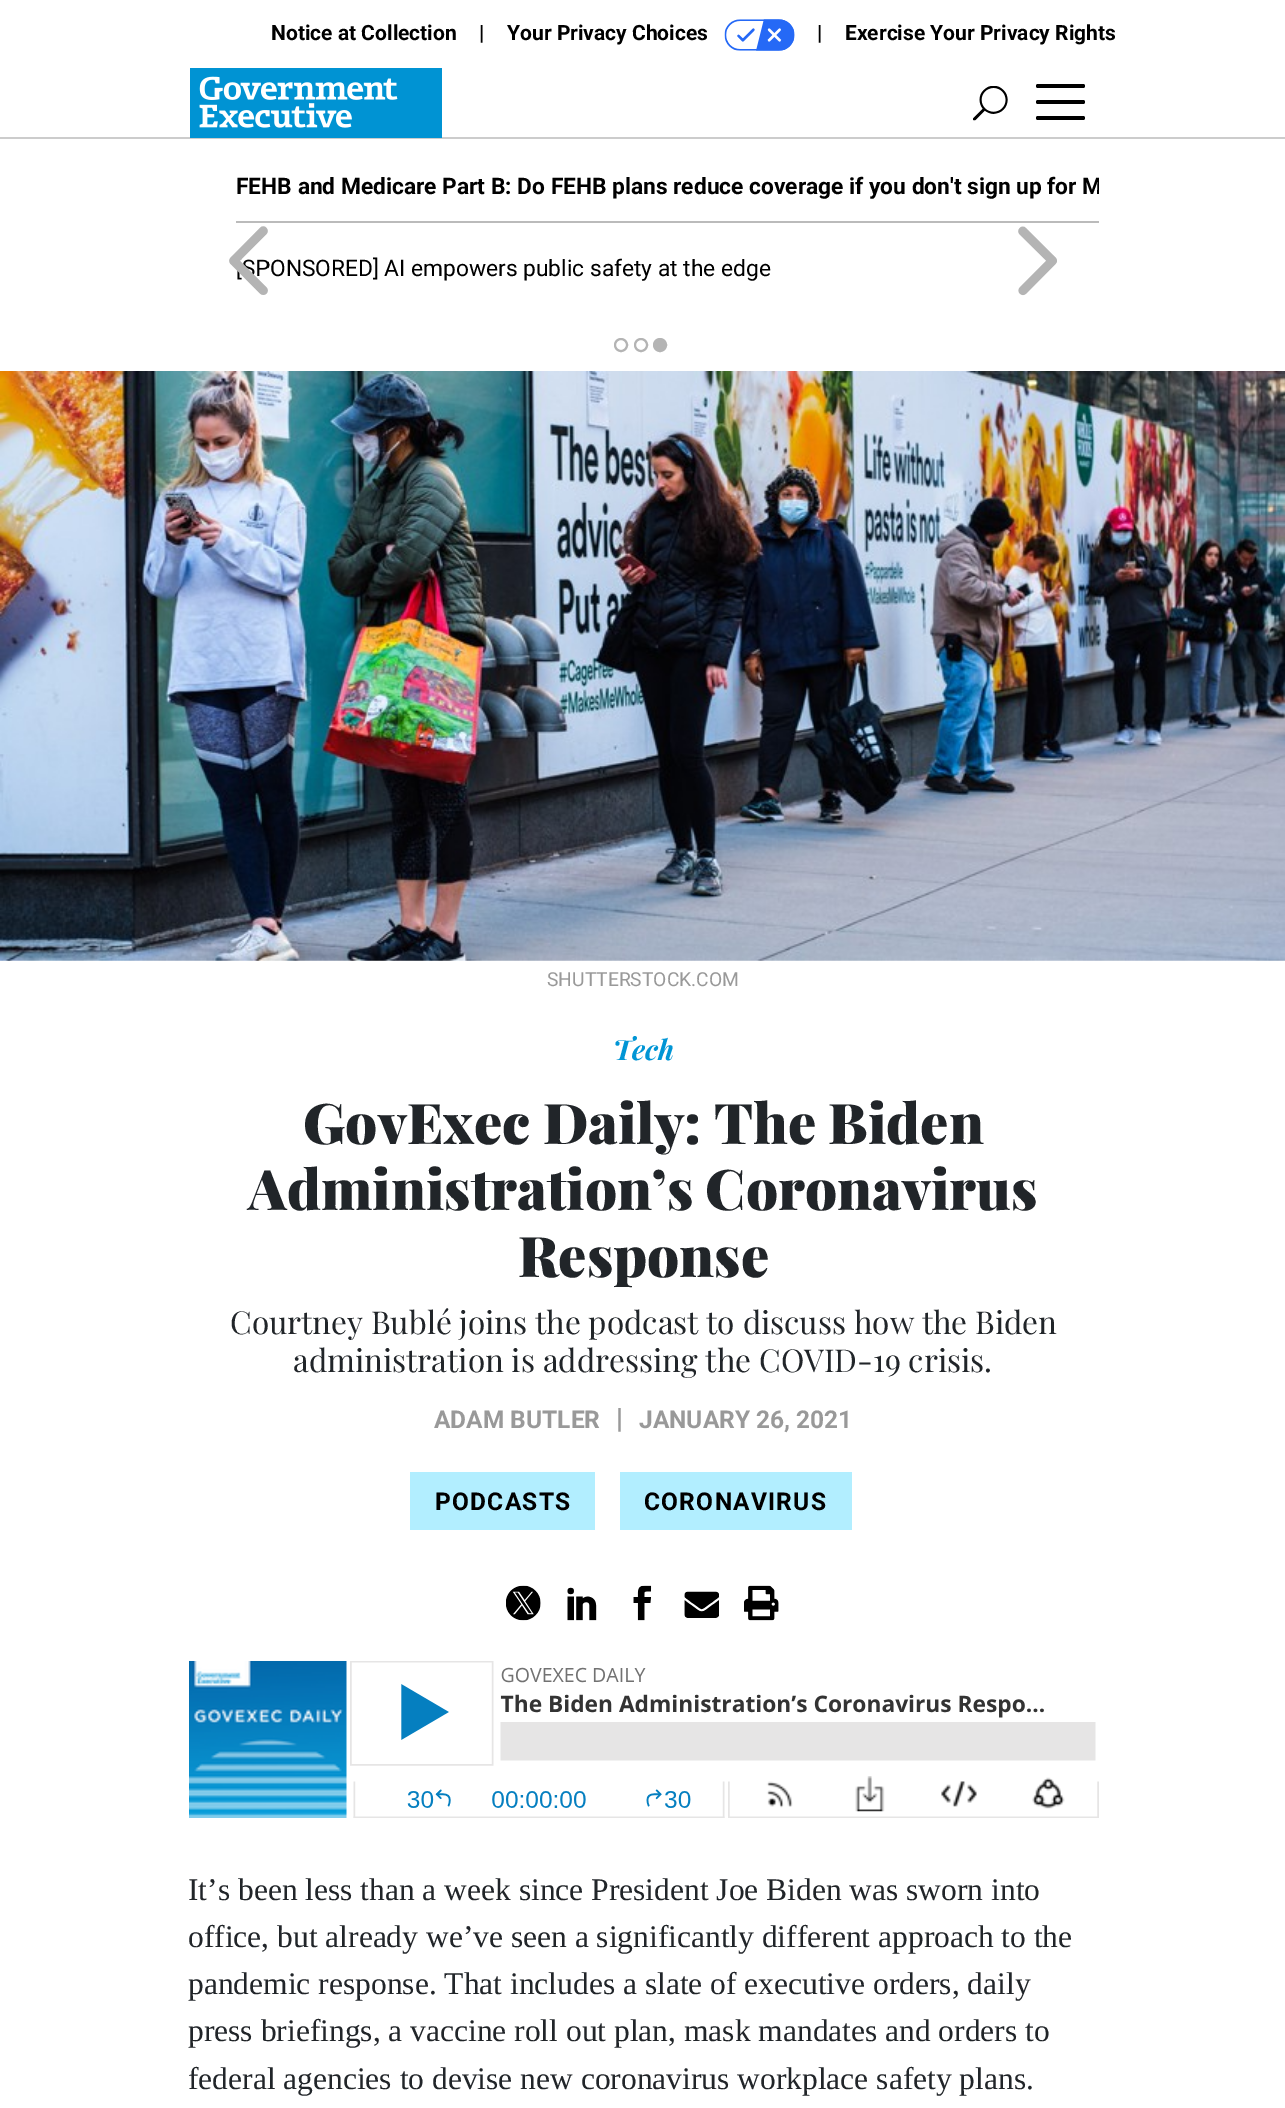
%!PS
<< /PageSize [1285 2108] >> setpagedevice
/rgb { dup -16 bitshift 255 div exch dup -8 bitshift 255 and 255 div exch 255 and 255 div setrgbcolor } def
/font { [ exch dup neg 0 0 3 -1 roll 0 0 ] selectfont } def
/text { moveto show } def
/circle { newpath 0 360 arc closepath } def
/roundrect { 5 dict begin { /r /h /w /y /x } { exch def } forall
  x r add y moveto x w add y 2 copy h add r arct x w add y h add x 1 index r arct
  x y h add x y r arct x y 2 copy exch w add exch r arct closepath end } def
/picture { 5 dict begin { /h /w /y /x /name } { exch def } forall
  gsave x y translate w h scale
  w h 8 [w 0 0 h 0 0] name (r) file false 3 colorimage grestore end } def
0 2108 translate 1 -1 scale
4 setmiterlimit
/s1 { /Roboto-Bold 21 font 16#000000 rgb } def
/s2 { /Roboto-Bold 22.75 font 16#000000 rgb } def
/s3 { /Roboto-Regular 22.75 font 16#000000 rgb } def
/s4 { /Roboto-Regular 19.25 font 16#999999 rgb } def
/s5 { /PlayfairDisplay-BoldItalic 28 font 16#0095D5 rgb } def
/s6 { /PlayfairDisplay-Black 56 font 16#212529 rgb } def
/s7 { /PlayfairDisplay-Regular 31.5 font 16#212529 rgb } def
/s8 { /Roboto-Bold 24.5 font 16#999999 rgb } def
/s9 { /Roboto-Bold 28 font 16#999999 rgb } def
/s10 { /LiberationSerif-Regular 31.5 font 16#212529 rgb } def
16#FFFFFF rgb
0 0 1285 2108 rectfill
s1
(Notice at Collection) 271 40 text
(|) 479 40 text
(Your Privacy Choices) 507 40 text
(pic1.raw) 724 19 71 32 picture
(|) 817 40 text
(Exercise Your Privacy Rights) 845 40 text
16#CCCCCC rgb
0 137 1285 2 rectfill
(pic2.raw) 190 68 252 70 picture
(pic3.raw) 973 86 35 35 picture
16#000000 rgb
1036 100 49 4 2 roundrect fill
1036 84 49 4 2 roundrect fill
1036 116 49 4 2 roundrect fill
gsave
236 166 863 37 rectclip
s2
(FEHB and Medicare Part B: Do FEHB plans reduce coverage if you don't sign up for M) 236 194 text
grestore
16#BBBBBB rgb
236 221 863 2 rectfill
s3
(SPONSORED] AI empowers public safety at the edge) 242 276 text
(pic4.raw) 229 226 39 69 picture
(pic5.raw) 1018 226 39 70 picture
16#B4B4B4 rgb
2 setlinewidth
621 345 6 circle stroke
641 345 6 circle stroke
660 345 6 circle gsave fill grestore
stroke
(pic6.raw) 0 371 1285 590 picture
s4
(SHUTTERSTOCK.COM) 547 986 text
s5
(Tech) 613 1060 text
s6
(GovExec Daily: The Biden) 303 1144 text
(Administration’s Coronavirus) 248 1210 text
(Response) 518 1277 text
s7
(Courtney Bublé joins the podcast to discuss how the Biden) 230 1334 text
(administration is addressing the COVID-19 crisis.) 293 1372 text
s8
(ADAM BUTLER) 434 1428 text
s9
(|) 616 1428 text
s8
(JANUARY 26, 2021) 639 1428 text
16#B2EEFF rgb
410 1472 185 58 rectfill
16#000000 rgb
435 1510 moveto 1.25 0 (PODCASTS) ashow
16#B2EEFF rgb
620 1472 232 58 rectfill
16#000000 rgb
644 1510 moveto 1.25 0 (CORONAVIRUS) ashow
(pic7.raw) 506 1585 35 36 picture
(pic8.raw) 567 1587 30 34 picture
(pic9.raw) 633 1585 19 36 picture
(pic10.raw) 684 1591 35 27 picture
(pic11.raw) 744 1585 35 36 picture
(pic12.raw) 189 1660 910 158 picture
s10
(It’s been less than a week since President Joe Biden was sworn into) 188 1900 text
(office, but already we’ve seen a significantly different approach to the) 188 1947 text
(pandemic response. That includes a slate of executive orders, daily) 188 1994 text
(press briefings, a vaccine roll out plan, mask mandates and orders to) 188 2041 text
(federal agencies to devise new coronavirus workplace safety plans.) 188 2089 text
showpage
